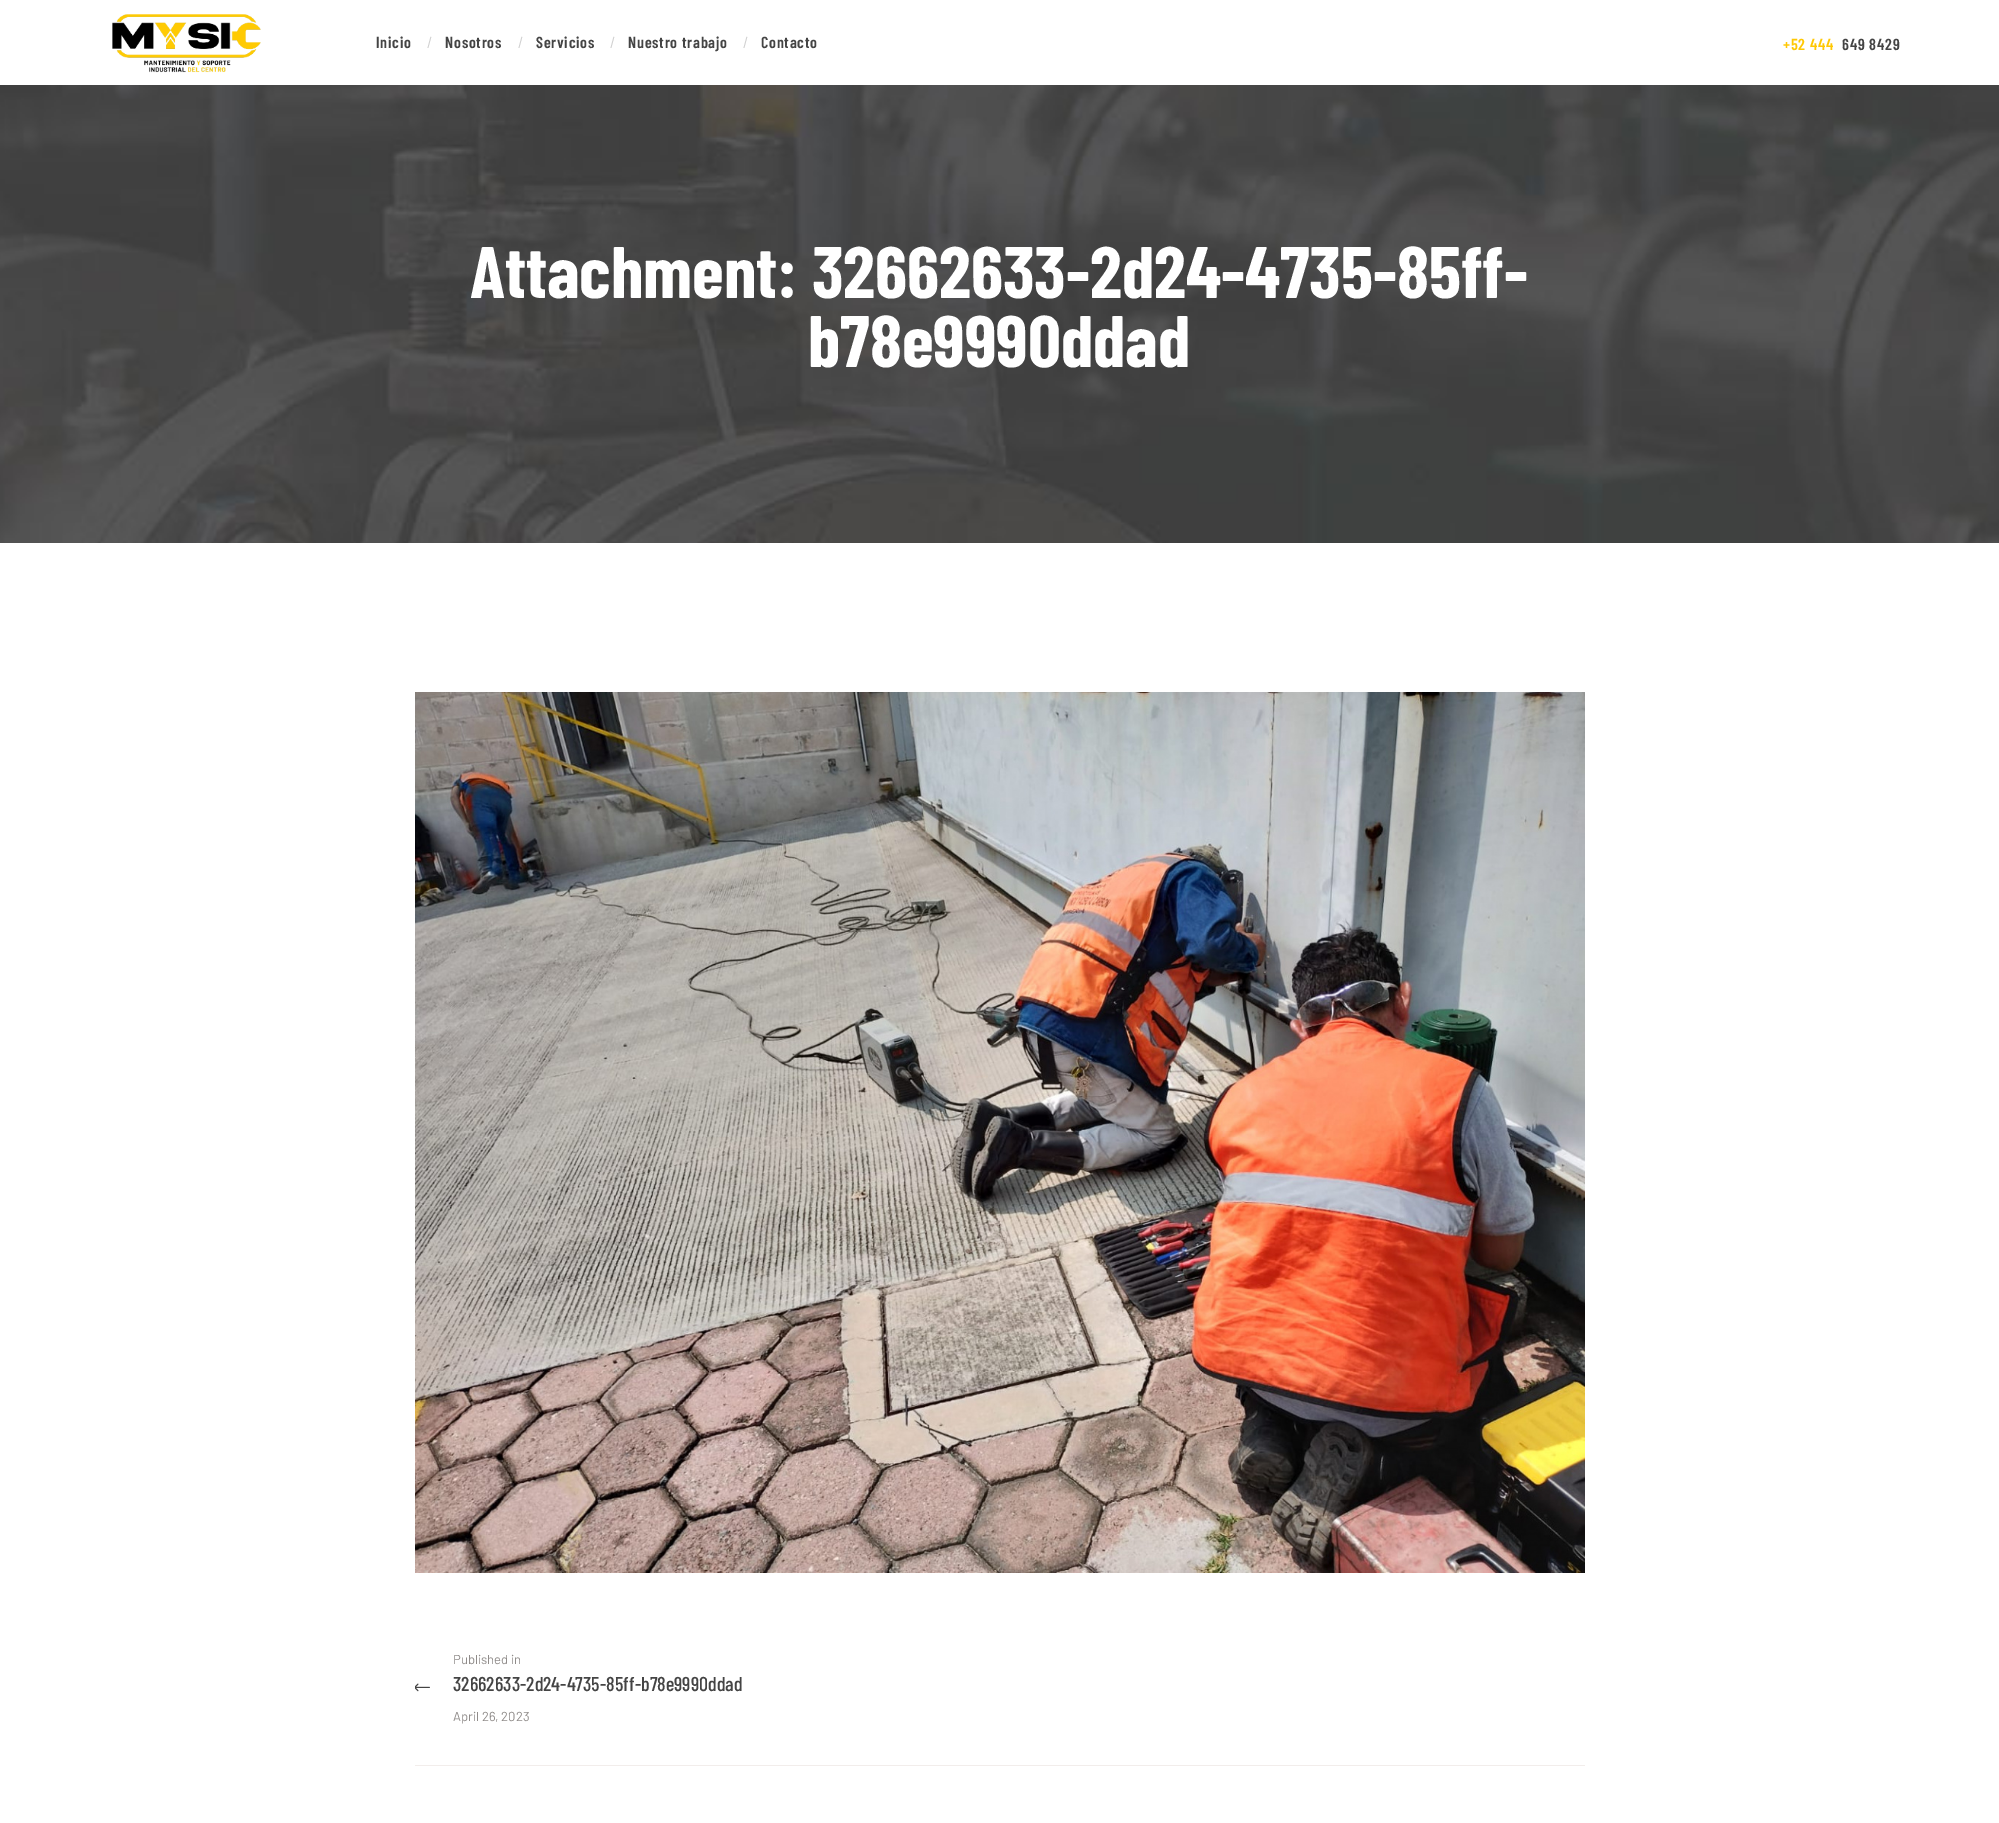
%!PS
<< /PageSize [1999 1823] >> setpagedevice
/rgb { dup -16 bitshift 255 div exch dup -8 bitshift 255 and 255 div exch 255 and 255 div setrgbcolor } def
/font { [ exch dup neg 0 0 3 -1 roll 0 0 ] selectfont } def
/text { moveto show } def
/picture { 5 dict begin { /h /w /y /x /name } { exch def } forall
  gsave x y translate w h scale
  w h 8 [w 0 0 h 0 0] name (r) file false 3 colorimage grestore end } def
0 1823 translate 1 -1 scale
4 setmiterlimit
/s1 { /BarlowCondensed-Regular 16 font 16#D2D2D2 rgb } def
/s2 { /Barlow-Regular 13 font 16#908C8A rgb } def
/s3 { /BarlowCondensed-Medium 20 font 16#444444 rgb } def
16#FFFFFF rgb
0 0 1999 1823 rectfill
(pic1.raw) 112 14 149 59 picture
/BarlowCondensed-SemiBold 16 font
16#444444 rgb
376 48 moveto 0.75 0 (Inicio) ashow
s1
(/) 427 48 text
/BarlowCondensed-SemiBold 16 font
16#444444 rgb
445 48 moveto 0.75 0 (Nosotros) ashow
s1
(/) 518 48 text
/BarlowCondensed-SemiBold 16 font
16#444444 rgb
536 48 moveto 0.75 0 (Servicios) ashow
s1
(/) 610 48 text
/BarlowCondensed-SemiBold 16 font
16#444444 rgb
628 48 moveto 0.75 0 (Nuestro trabajo) ashow
s1
(/) 743 48 text
/BarlowCondensed-SemiBold 16 font
16#444444 rgb
761 48 moveto 0.75 0 (Contacto) ashow
16#FFC803 rgb
1783 50 moveto 0.75 0 (+52 444) ashow
16#444444 rgb
1842 50 moveto 0.75 0 (649 8429) ashow
(pic2.raw) 0 85 1999 458 picture
/BarlowCondensed-Bold 72.75 font
16#FFFFFF rgb
470 298 moveto -0.1 0 (Attachment: 32662633-2d24-4735-85ff-) ashow
808 367 moveto -0.1 0 (b78e9990ddad) ashow
(pic3.raw) 415 692 1170 881 picture
s2
(Published in) 453 1664 text
(pic4.raw) 415 1683 15 9 picture
s3
(32662633-2d24-4735-85ff-b78e9990ddad) 453 1691 text
s2
(April 26, 2023) 453 1721 text
16#F2EDEB rgb
415 1765 1170 1 rectfill
showpage
